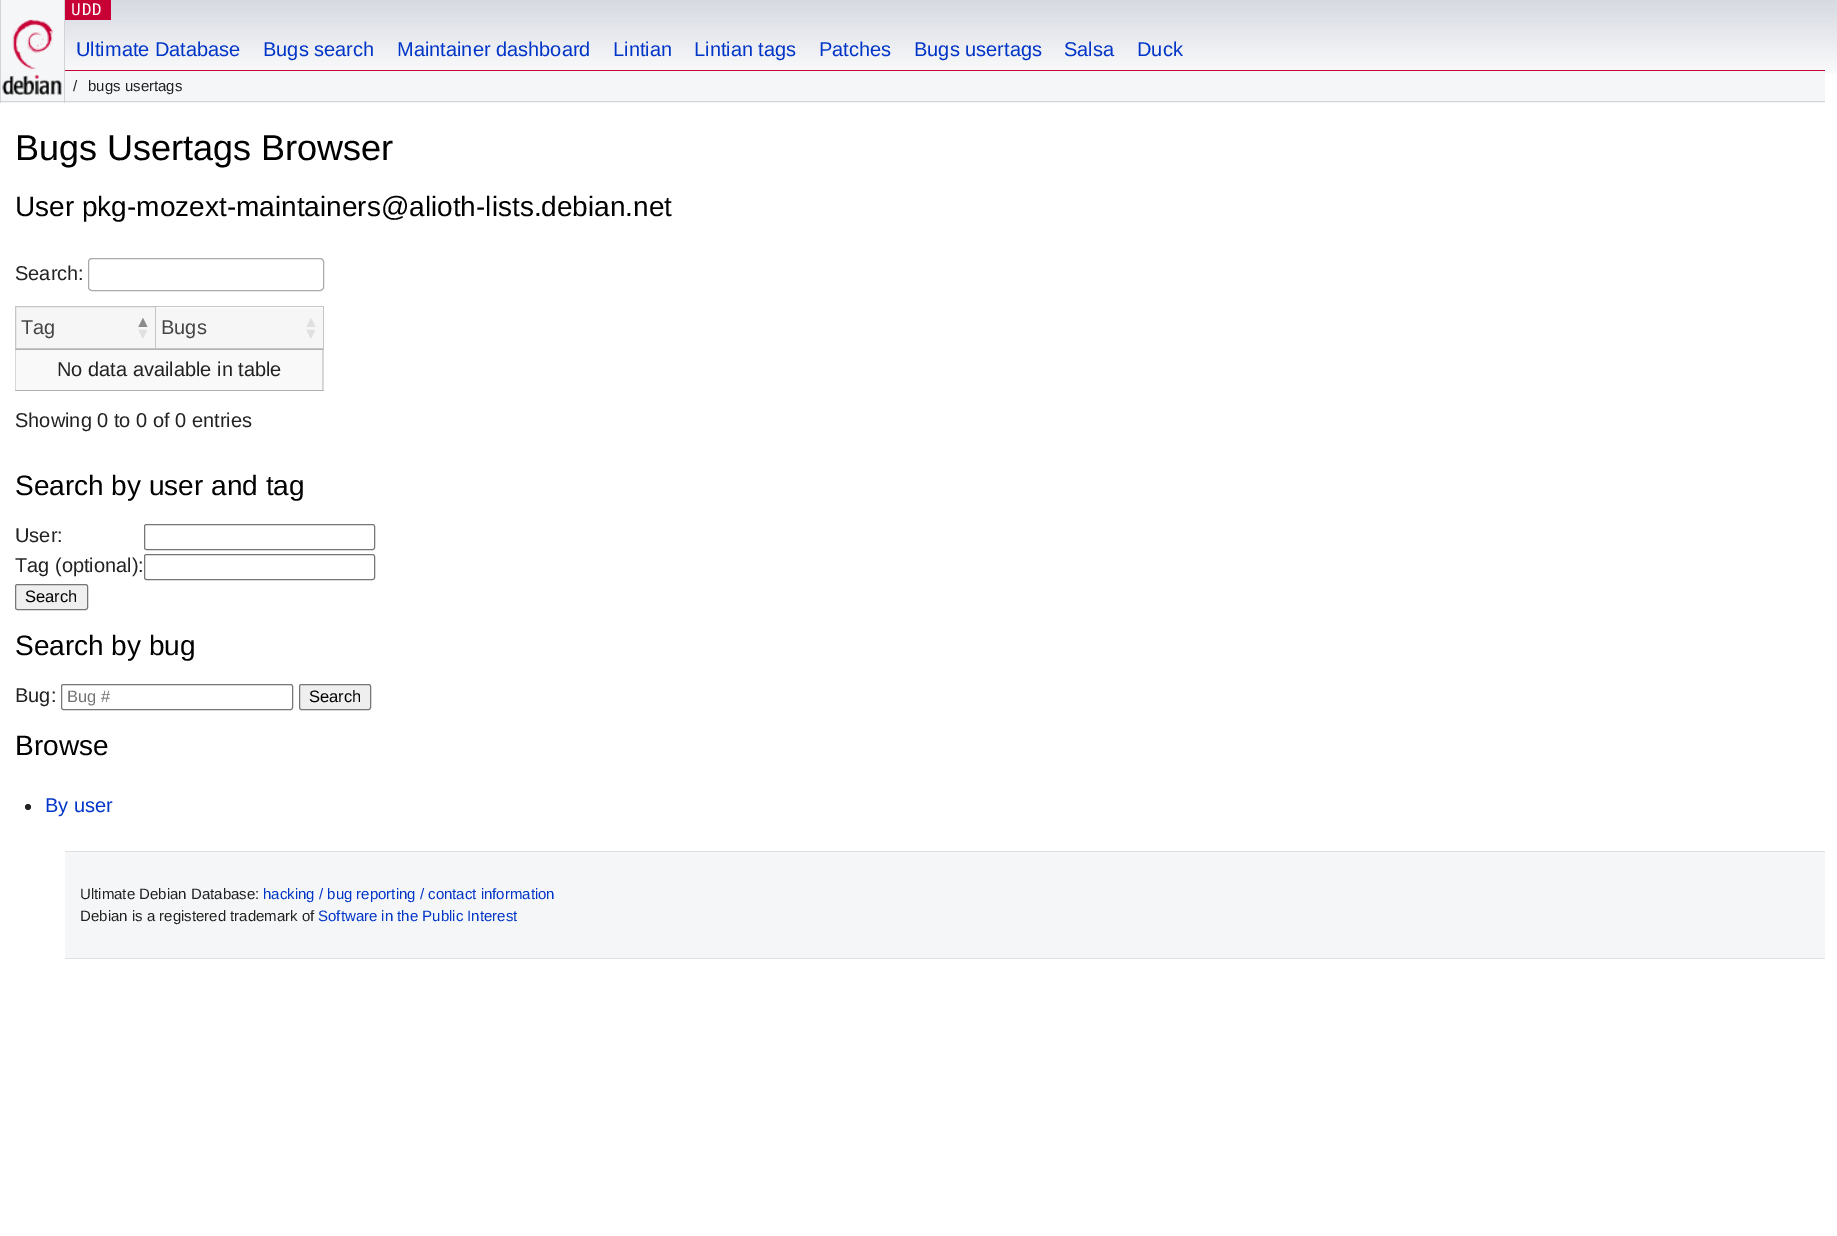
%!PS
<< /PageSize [1837 1236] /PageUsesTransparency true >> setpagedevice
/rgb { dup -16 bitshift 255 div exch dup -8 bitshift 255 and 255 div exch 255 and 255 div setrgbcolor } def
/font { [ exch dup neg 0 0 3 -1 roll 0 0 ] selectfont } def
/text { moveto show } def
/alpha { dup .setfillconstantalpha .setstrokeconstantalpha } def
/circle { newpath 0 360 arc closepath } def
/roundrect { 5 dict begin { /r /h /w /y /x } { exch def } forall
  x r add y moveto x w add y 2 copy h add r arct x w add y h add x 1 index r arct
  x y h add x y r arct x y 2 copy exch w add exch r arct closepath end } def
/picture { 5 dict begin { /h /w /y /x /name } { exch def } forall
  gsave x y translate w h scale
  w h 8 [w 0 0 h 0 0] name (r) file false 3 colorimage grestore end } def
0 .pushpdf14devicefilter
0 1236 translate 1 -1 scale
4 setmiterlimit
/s1 { /LiberationSans-Regular 20 font 16#0035C7 rgb } def
/s2 { /LiberationSans-Regular 15 font 16#222222 rgb } def
/s3 { /LiberationSans-Regular 36 font 16#000000 rgb } def
/s4 { /LiberationSans-Regular 28 font 16#000000 rgb } def
/s5 { /LiberationSans-Regular 20 font 16#222222 rgb } def
/s6 { /LiberationSans-Regular 20 font 16#454545 rgb } def
/s7 { /LiberationSans-Regular 16 font 16#8C8C8C rgb } def
/s8 { /LiberationSans-Regular 16 font 16#E0E0E0 rgb } def
/s9 { /LiberationSans-Regular 16.5 font 16#000000 rgb } def
/s10 { /LiberationSans-Regular 16.5 font 16#757575 rgb } def
/s11 { /LiberationSans-Regular 15 font 16#0035C7 rgb } def
16#FFFFFF rgb
0 0 1837 1236 rectfill
(pic1.raw) 65 0 1772 74 picture
16#F5F6F7 rgb
1 0 63 103 rectfill
16#D2D3D7 rgb
64 0 1 103 rectfill
0 101 65 1 rectfill
0 0 1 103 rectfill
(pic2.raw) 2 19 60 76 picture
16#C70036 rgb
65 0 46 20 rectfill
/DejaVuSansMono-Regular 16 font
16#FFFFFF rgb
71 15 moveto 1 0 (UDD) ashow
16#C70036 rgb
65 70 1760 1 rectfill
s1
(Ultimate Database) 76 56 text
(Bugs search) 263 56 text
(Maintainer dashboard) 397 56 text
(Lintian) 613 56 text
(Lintian tags) 694 56 text
(Patches) 819 56 text
(Bugs usertags) 914 56 text
(Salsa) 1064 56 text
(Duck) 1137 56 text
16#F5F6F7 rgb
65 71 1760 32 rectfill
16#D2D3D7 rgb
65 101 1760 1 rectfill
s2
(/) 73 91 text
(bugs usertags) 88 91 text
s3
(Bugs Usertags Browser) 15 160 text
s4
(User pkg-mozext-maintainers@alioth-lists.debian.net) 15 216 text
s5
(Search:) 15 280 text
16#AAAAAA rgb
88.5 258.5 235 32 3.5 roundrect stroke
16#F6F6F6 rgb
15.5 306.5 moveto 155.5 306.5 lineto 155.5 348.5 lineto 15.5 348.5 lineto closepath gsave fill grestore
16#C5C5C5 rgb
stroke
s6
(Tag) 21 334 text
s7
(▲) 135 327 text
s8
(▼) 135 339 text
16#F6F6F6 rgb
156 308 167 40 rectfill
16#C5C5C5 rgb
156 306 168 1 rectfill
323 306 1 43 rectfill
156 348 168 1 rectfill
s6
(Bugs) 161 334 text
s8
(▲) 303 327 text
(▼) 303 339 text
16#F9F9F9 rgb
16 350 307 40 rectfill
16#B3B3B3 rgb
15 349 moveto 324 349 lineto 322 350 lineto 16 350 lineto closepath fill
0.15 alpha
16#000000 rgb
324 349 moveto 324 391 lineto 322 390 lineto 322 350 lineto closepath fill
0.3 alpha
324 391 moveto 15 391 lineto 16 390 lineto 322 390 lineto closepath fill
0.15 alpha
15 391 moveto 15 349 lineto 16 350 lineto 16 390 lineto closepath fill
1 alpha
s5
(No data available in table) 57 376 text
(Showing 0 to 0 of 0 entries) 15 427 text
s4
(Search by user and tag) 15 495 text
s5
(User:) 15 542 text
16#767676 rgb
144.5 524.5 230 25 2 roundrect stroke
s5
(Tag \(optional\):) 15 572 text
16#767676 rgb
144.5 554.5 230 25 2 roundrect stroke
16#EFEFEF rgb
15.5 584.5 72 25 2 roundrect gsave fill grestore
16#767676 rgb
stroke
s9
(Search) 25 602 text
s4
(Search by bug) 15 655 text
s5
(Bug:) 15 702 text
16#767676 rgb
61.5 684.5 231 25 2 roundrect stroke
s10
(Bug #) 67 702 text
16#EFEFEF rgb
299.5 684.5 71 25 2 roundrect gsave fill grestore
16#767676 rgb
stroke
s9
(Search) 309 702 text
s4
(Browse) 15 755 text
16#222222 rgb
28 807 3 circle fill
s1
(By user) 45 812 text
16#F5F6F7 rgb
65 852 1760 106 rectfill
16#DFDFE0 rgb
65 851 1760 1 rectfill
65 958 1760 1 rectfill
s2
(Ultimate Debian Database:) 80 899 text
s11
(hacking / bug reporting / contact information) 263 899 text
s2
(Debian is a registered trademark of) 80 921 text
s11
(Software in the Public Interest) 318 921 text
.poppdf14devicefilter showpage
